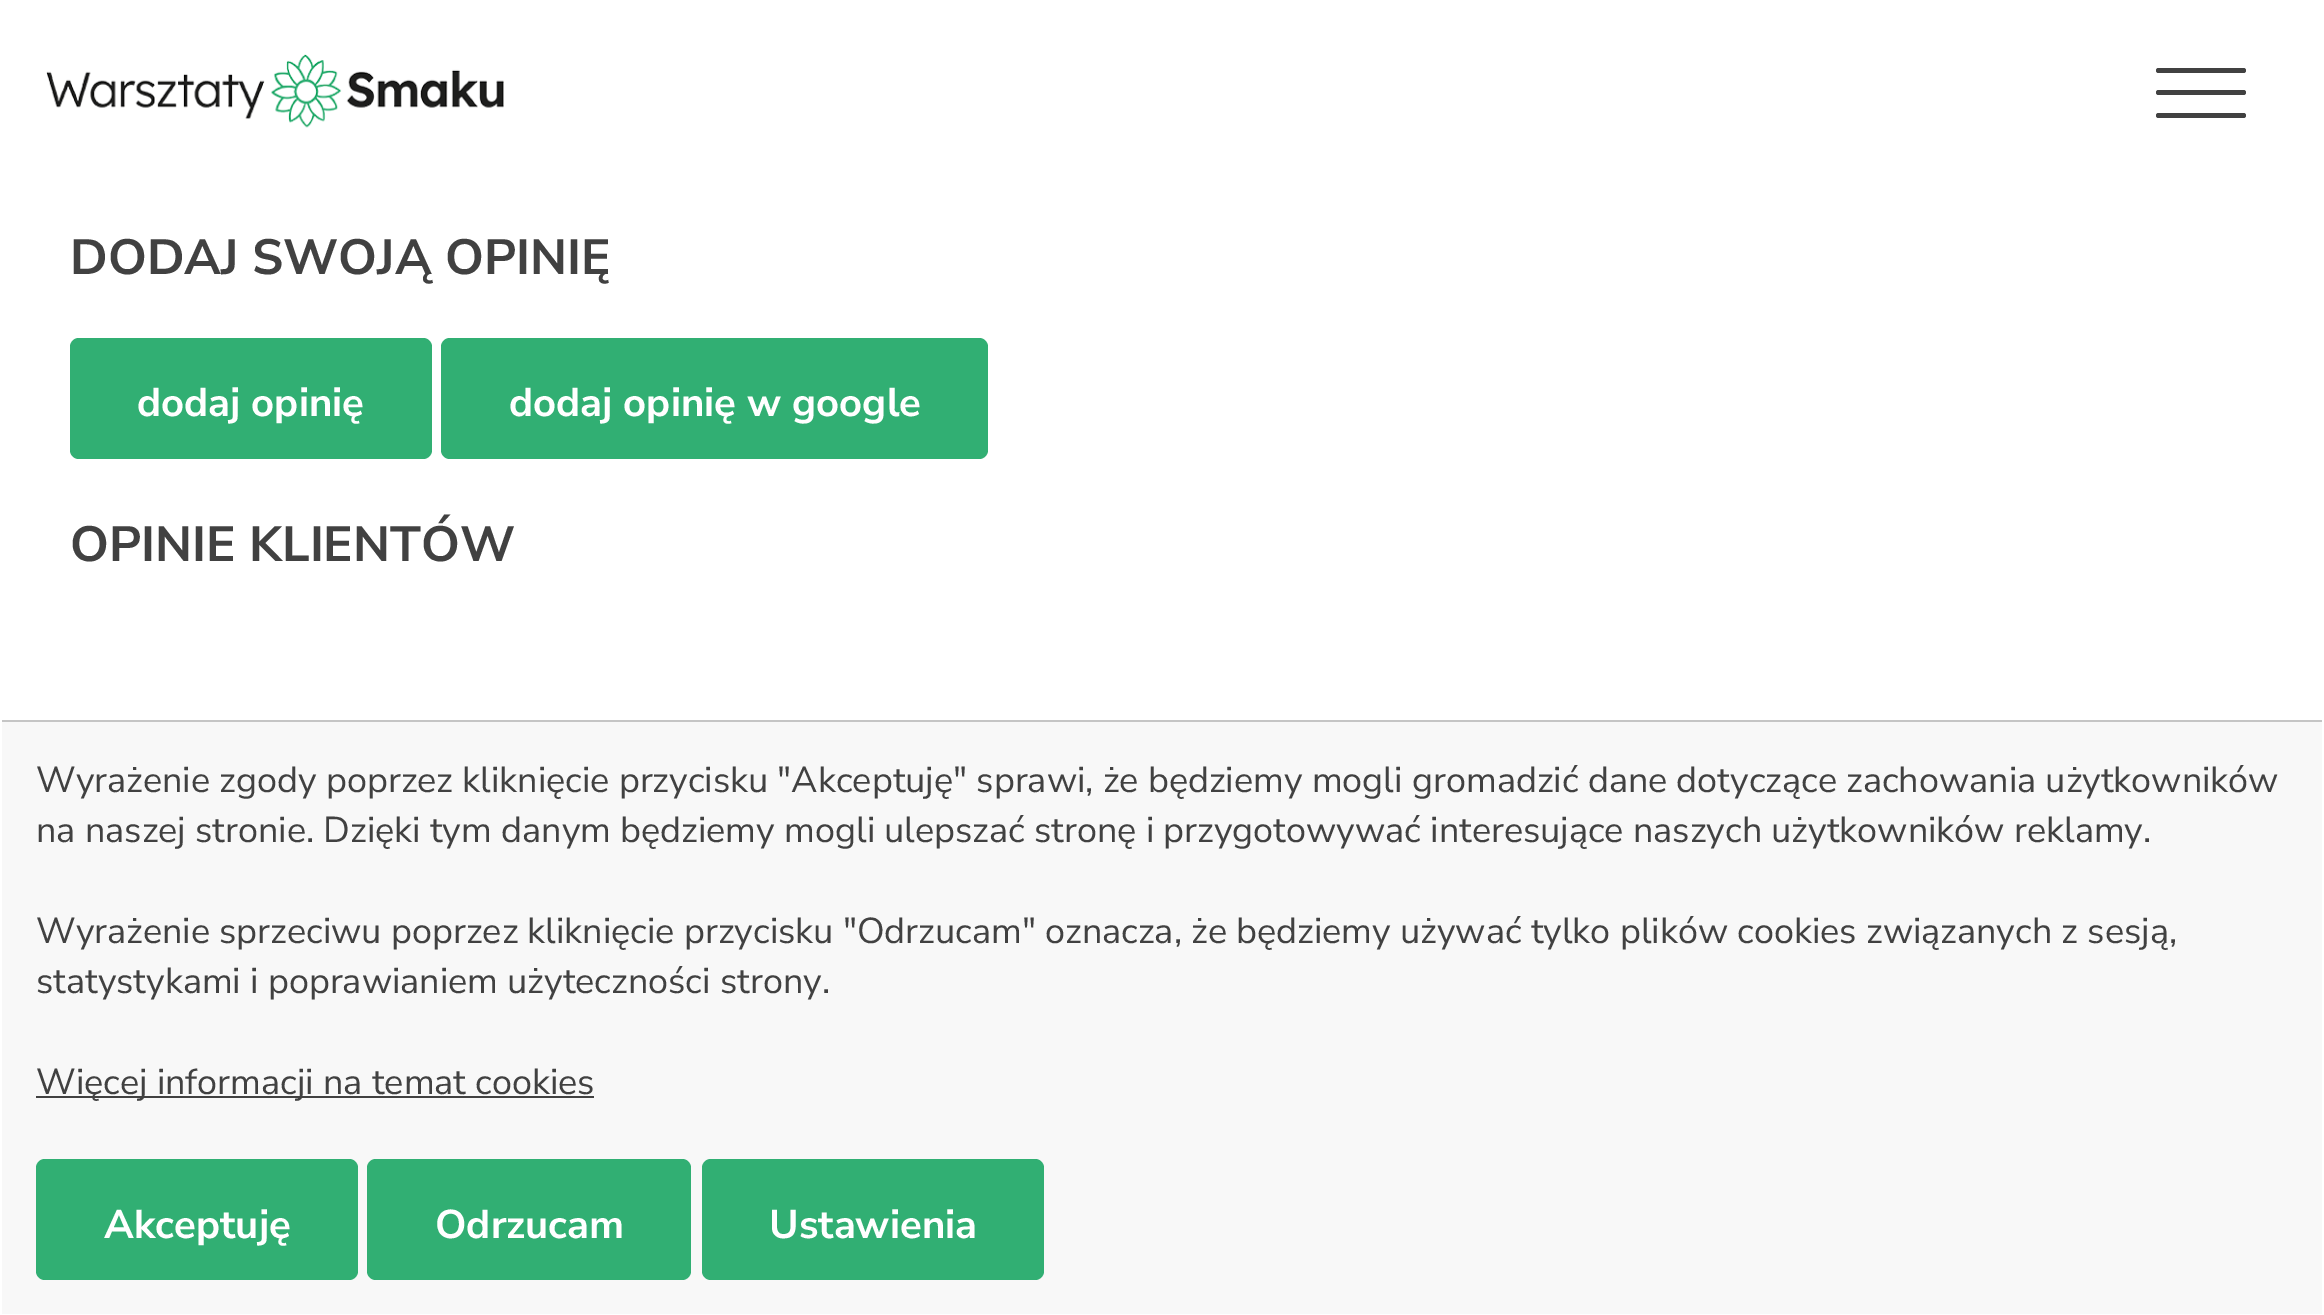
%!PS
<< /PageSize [2324 1315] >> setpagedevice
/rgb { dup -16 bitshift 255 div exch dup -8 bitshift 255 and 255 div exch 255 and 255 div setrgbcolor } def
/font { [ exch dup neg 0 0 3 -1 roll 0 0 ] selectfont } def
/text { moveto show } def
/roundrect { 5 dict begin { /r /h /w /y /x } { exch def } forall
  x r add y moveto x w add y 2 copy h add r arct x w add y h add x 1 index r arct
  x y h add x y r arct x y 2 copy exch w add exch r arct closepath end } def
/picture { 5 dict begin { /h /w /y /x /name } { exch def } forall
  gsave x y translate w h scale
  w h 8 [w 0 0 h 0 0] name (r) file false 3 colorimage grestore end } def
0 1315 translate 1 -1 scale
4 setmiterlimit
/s1 { /NunitoSans-Bold 49.5 font 16#414141 rgb } def
/s2 { /NunitoSans-Bold 40.1 font 16#FFFFFF rgb } def
/s3 { /NunitoSans-Regular 36 font 16#414141 rgb } def
16#FFFFFF rgb
0 0 2324 1315 rectfill
(pic1.raw) 46 54 458 74 picture
16#414141 rgb
2156 113 90 5 2.5 roundrect fill
2156 68 90 5 2.5 roundrect fill
2156 90 90 5 2.5 roundrect fill
s1
(DODAJ SWOJĄ OPINIĘ) 70 274 text
16#31AF73 rgb
70 338 362 121 9 roundrect fill
s2
(dodaj opinię) 137 416 text
16#31AF73 rgb
441 338 547 121 9 roundrect fill
s2
(dodaj opinię w google) 509 416 text
s1
(OPINIE KLIENTÓW) 70 561 text
16#F8F8F8 rgb
2 722 2320 592 rectfill
16#C5C5C5 rgb
0 720 2324 2 rectfill
16#FFFFFF rgb
2322 720 2 2 rectfill
0 720 2 2 rectfill
s3
(Wyrażenie zgody poprzez kliknięcie przycisku "Akceptuję" sprawi, że będziemy mogli gromadzić dane dotyczące zachowania użytkowników) 36 792 text
(na naszej stronie. Dzięki tym danym będziemy mogli ulepszać stronę i przygotowywać interesujące naszych użytkowników reklamy.) 36 842 text
(Wyrażenie sprzeciwu poprzez kliknięcie przycisku "Odrzucam" oznacza, że będziemy używać tylko plików cookies związanych z sesją,) 36 943 text
(statystykami i poprawianiem użyteczności strony.) 36 993 text
36 1096 558 2 rectfill
(Więcej informacji na temat cookies) 36 1094 text
16#31AF73 rgb
36 1159 322 121 9 roundrect fill
s2
(Akceptuję) 104 1238 text
16#31AF73 rgb
367 1159 324 121 9 roundrect fill
s2
(Odrzucam) 435 1238 text
16#31AF73 rgb
702 1159 342 121 9 roundrect fill
s2
(Ustawienia) 769 1238 text
showpage
